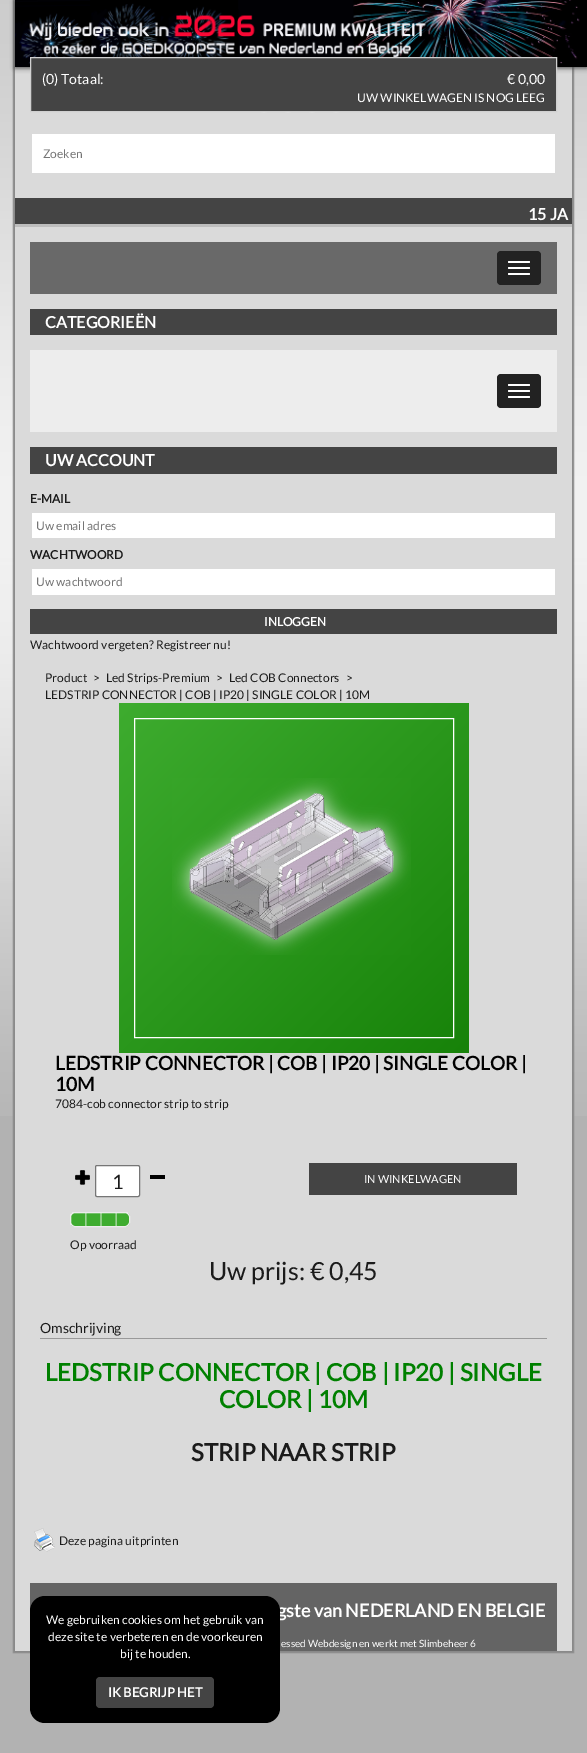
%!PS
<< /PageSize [587 1753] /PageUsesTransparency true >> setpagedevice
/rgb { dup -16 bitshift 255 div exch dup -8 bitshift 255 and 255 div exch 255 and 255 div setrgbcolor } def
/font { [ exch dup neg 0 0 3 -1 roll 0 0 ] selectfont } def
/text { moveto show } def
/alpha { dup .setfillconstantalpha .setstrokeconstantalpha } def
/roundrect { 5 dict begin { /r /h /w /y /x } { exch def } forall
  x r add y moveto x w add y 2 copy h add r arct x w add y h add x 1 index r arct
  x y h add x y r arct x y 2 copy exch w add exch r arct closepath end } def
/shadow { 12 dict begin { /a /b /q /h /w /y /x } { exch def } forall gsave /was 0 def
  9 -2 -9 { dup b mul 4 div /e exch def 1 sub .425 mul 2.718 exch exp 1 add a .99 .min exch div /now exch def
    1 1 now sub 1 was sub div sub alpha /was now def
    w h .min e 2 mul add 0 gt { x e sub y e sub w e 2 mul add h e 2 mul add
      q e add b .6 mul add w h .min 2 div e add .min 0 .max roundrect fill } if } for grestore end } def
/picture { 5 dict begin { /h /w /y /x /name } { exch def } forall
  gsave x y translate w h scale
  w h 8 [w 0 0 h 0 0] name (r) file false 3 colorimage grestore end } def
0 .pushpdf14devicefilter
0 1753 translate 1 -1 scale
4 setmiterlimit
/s1 { /Lato-Regular 14 font 16#FFFFFF rgb } def
/s2 { /Lato-Regular 12 font 16#FFFFFF rgb } def
/s3 { /Lato-Regular 12 font 16#757575 rgb } def
/s4 { /Lato-Bold 16 font 16#FFFFFF rgb } def
/s5 { /Lato-Bold 12 font 16#1B1B1B rgb } def
/s6 { /Lato-Bold 12 font 16#FFFFFF rgb } def
/s7 { /Lato-Regular 12 font 16#1B1B1B rgb } def
/s8 { /Lato-Bold 19 font 16#000000 rgb } def
/s9 { /Lato-Regular 20 font 16#1B1B1B rgb } def
/s10 { /Lato-Regular 11 font 16#FFFFFF rgb } def
/s11 { /Lato-Regular 25 font 16#1B1B1B rgb } def
/s12 { /Lato-Regular 14 font 16#1B1B1B rgb } def
/s13 { /Lato-Bold 24 font 16#008000 rgb } def
/s14 { /Lato-Bold 24 font 16#1B1B1B rgb } def
/s15 { /Lato-Bold 18 font 16#FFFFFF rgb } def
/s16 { /Lato-Regular 10 font 16#FFFFFF rgb } def
/s17 { /Lato-Bold 13 font 16#FFFFFF rgb } def
16#B2B2B2 rgb
0 0 587 1753 rectfill
(pic1.raw) 0 0 587 1116 picture
16#888888 rgb
13 -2 561 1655 0 0.5 1 shadow
16#DADADA rgb
15 67 557 1584 rectfill
16#BDBDBD rgb
15 224 557 3 rectfill
16#4A4A4A rgb
15 1 572 67 0 2.5 1 shadow
(pic2.raw) 15 0 572 67 picture
(pic3.raw) 261 112 6 1 picture
(pic3.raw) 285 112 6 1 picture
(pic3.raw) 309 112 6 1 picture
(pic3.raw) 333 112 6 1 picture
16#444444 rgb
30.5 57.5 moveto 556.5 57.5 lineto 556.5 111.5 lineto 30.5 111.5 lineto closepath gsave fill grestore
16#D0D0D0 rgb
stroke
s1
(\(0\) Totaal:) 42 84 text
(€ 0,00) 507 84 text
s2
(UW WINKELWAGEN IS NOG LEEG) 357 102 text
32 134 523 39 rectfill
s3
(Zoeken) 43 158 text
16#444444 rgb
15 198 557 26 rectfill
s4
(15 JA) 528 220 text
16#696969 rgb
30 242 527 52 rectfill
16#222222 rgb
497 251 44 34 4 roundrect fill
16#FFFFFF rgb
508 261 22 2 1 roundrect fill
508 267 22 2 1 roundrect fill
508 273 22 2 1 roundrect fill
16#444444 rgb
30 309 527 26 rectfill
s4
(CATEGORIEËN) 45 328 text
16#EDEDED rgb
30 350 527 82 rectfill
16#222222 rgb
497 374 44 34 4 roundrect fill
16#FFFFFF rgb
508 384 22 2 1 roundrect fill
508 390 22 2 1 roundrect fill
508 396 22 2 1 roundrect fill
16#444444 rgb
30 447 527 27 rectfill
s4
(UW ACCOUNT) 45 466 text
s5
(E-MAIL) 30 503 text
16#FFFFFF rgb
32 513 523 25 rectfill
s3
(Uw email adres) 36 530 text
s5
(WACHTWOORD) 30 559 text
16#FFFFFF rgb
32 569 523 26 rectfill
s3
(Uw wachtwoord) 36 586 text
16#444444 rgb
30 609 527 25 rectfill
s6
(INLOGGEN) 264 626 text
s7
(Wachtwoord vergeten?) 30 649 text
(Registreer nu!) 156 649 text
(Product) 45 682 text
(>) 93 682 text
(Led Strips-Premium) 106 682 text
(>) 216 682 text
(Led COB Connectors) 229 682 text
(>) 346 682 text
(LEDSTRIP CONNECTOR | COB | IP20 | SINGLE COLOR | 10M) 45 699 text
gsave 119 703 moveto 469 703 lineto 469 1053 lineto 119 1053 lineto closepath clip newpath
<< /ShadingType 2 /ColorSpace /DeviceRGB /Coords [119 703 469 1053] /Extend [true true] /Function << /FunctionType 2 /Domain [0 1] /C0 [0.243 0.675 0.184] /C1 [0.09 0.51 0.035] /N 1 >> >> shfill grestore
(pic4.raw) 172 778 239 177 picture
16#FFFFFF rgb
134.5 718.5 319 319 rectstroke
s8
(LEDSTRIP CONNECTOR | COB | IP20 | SINGLE COLOR |) 55 1070 text
(10M) 55 1091 text
s7
(7084-cob connector strip to strip) 55 1108 text
(pic5.raw) 75 1170 15 15 picture
16#FFFFFF rgb
95.5 1165.5 44 31 1.5 roundrect gsave fill grestore
16#767676 rgb
stroke
s9
(1) 112 1189 text
16#000000 rgb
150 1175 15 4 rectfill
16#444444 rgb
309 1163 208 32 rectfill
s10
(IN WINKELWAGEN) 364 1183 text
16#F8F8F8 rgb
70 1212 60 15 5 roundrect fill
(pic6.raw) 71 1213 59 14 picture
16#ECECEC rgb
70.5 1212.5 59 14 4.5 roundrect stroke
s7
(Op voorraad) 70 1249 text
s11
(Uw prijs: € 0,45) 209 1280 text
16#999999 rgb
40 1338 507 1 rectfill
s12
(Omschrijving) 40 1333 text
s13
(LEDSTRIP CONNECTOR | COB | IP20 | SINGLE) 45 1381 text
(COLOR | 10M) 219 1408 text
s14
(STRIP NAAR STRIP) 191 1461 text
(pic7.raw) 34 1528 21 24 picture
s7
(Deze pagina uitprinten) 59 1545 text
16#646464 rgb
30 1583 527 68 rectfill
s15
(gste van NEDERLAND EN BELGIE) 277 1617 text
s16
(essed Webdesign en werkt met Slimbeheer 6) 281 1647 text
16#000000 rgb
30 1596 250 127 15 roundrect fill
s2
(We gebruiken cookies om het gebruik van) 46 1624 text
(deze site te verbeteren en de voorkeuren) 48 1641 text
(bij te houden.) 120 1658 text
16#444444 rgb
96 1677 118 31 4 roundrect fill
s17
(IK BEGRIJP HET) 108 1697 text
.poppdf14devicefilter showpage
